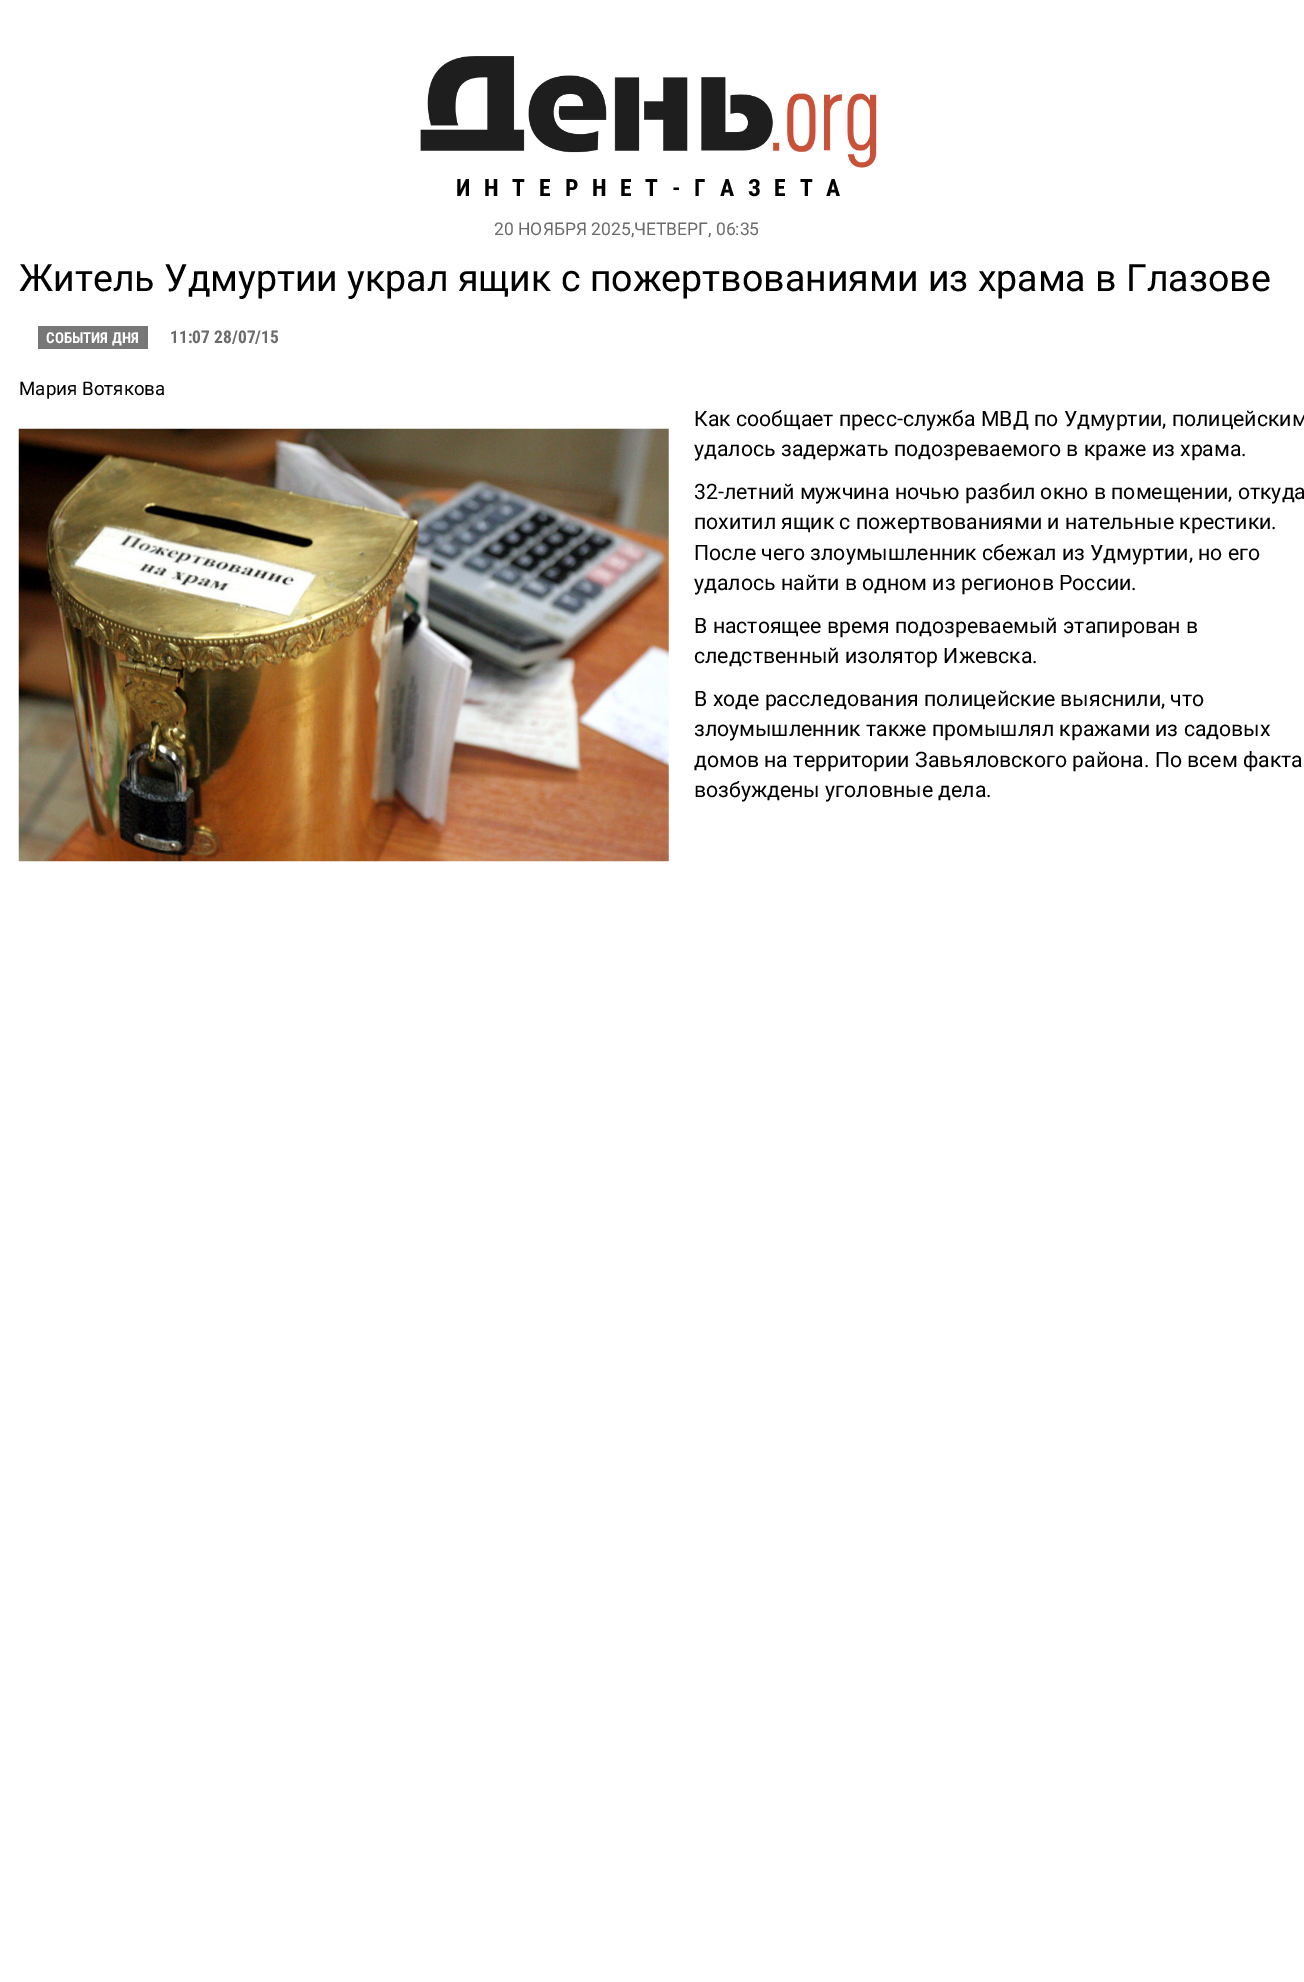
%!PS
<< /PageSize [1304 1982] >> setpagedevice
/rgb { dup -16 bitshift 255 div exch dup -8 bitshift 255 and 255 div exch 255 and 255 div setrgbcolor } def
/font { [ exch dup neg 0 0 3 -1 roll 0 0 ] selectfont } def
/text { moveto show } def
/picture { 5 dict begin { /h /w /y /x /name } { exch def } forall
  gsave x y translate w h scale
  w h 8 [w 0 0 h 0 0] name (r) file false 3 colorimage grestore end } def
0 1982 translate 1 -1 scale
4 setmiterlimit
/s1 { /Roboto-Regular 17.5 font 16#6B6B6B rgb } def
/s2 { /Roboto-Regular 37.5 font 16#000000 rgb } def
/s3 { /RobotoCondensed-Bold 15 font 16#FFFFFF rgb } def
/s4 { /RobotoCondensed-Bold 17.5 font 16#6B6B6B rgb } def
/s5 { /Roboto-Regular 18.75 font 16#000000 rgb } def
/s6 { /Roboto-Regular 21.25 font 16#000000 rgb } def
16#FFFFFF rgb
0 0 1304 1982 rectfill
(pic1.raw) 420 56 457 112 picture
/RobotoCondensed-Bold 23.75 font
16#000000 rgb
456 196 moveto 13.75 0 (ИНТЕРНЕТ-ГАЗЕТА) ashow
s1
(20 НОЯБРЯ 2025,ЧЕТВЕРГ, 06:35) 494 235 text
s2
(Житель Удмуртии украл ящик с пожертвованиями из храма в Глазове) 19 291 text
16#777777 rgb
38 326 110 23 rectfill
s3
(СОБЫТИЯ ДНЯ) 46 343 text
s4
(11:07 28/07/15) 170 343 text
s5
(Мария Вотякова) 19 395 text
s6
(Как сообщает пресс-служба МВД по Удмуртии, полицейским) 694 426 text
(pic2.raw) 18 428 651 434 picture
(удалось задержать подозреваемого в краже из храма.) 694 456 text
(32-летний мужчина ночью разбил окно в помещении, откуда) 694 499 text
(похитил ящик с пожертвованиями и нательные крестики.) 694 529 text
(После чего злоумышленник сбежал из Удмуртии, но его) 694 560 text
(удалось найти в одном из регионов России.) 694 590 text
(В настоящее время подозреваемый этапирован в) 694 633 text
(следственный изолятор Ижевска.) 694 663 text
(В ходе расследования полицейские выяснили, что) 694 706 text
(злоумышленник также промышлял кражами из садовых) 694 736 text
(домов на территории Завьяловского района. По всем факта) 694 767 text
(возбуждены уголовные дела.) 694 797 text
showpage
